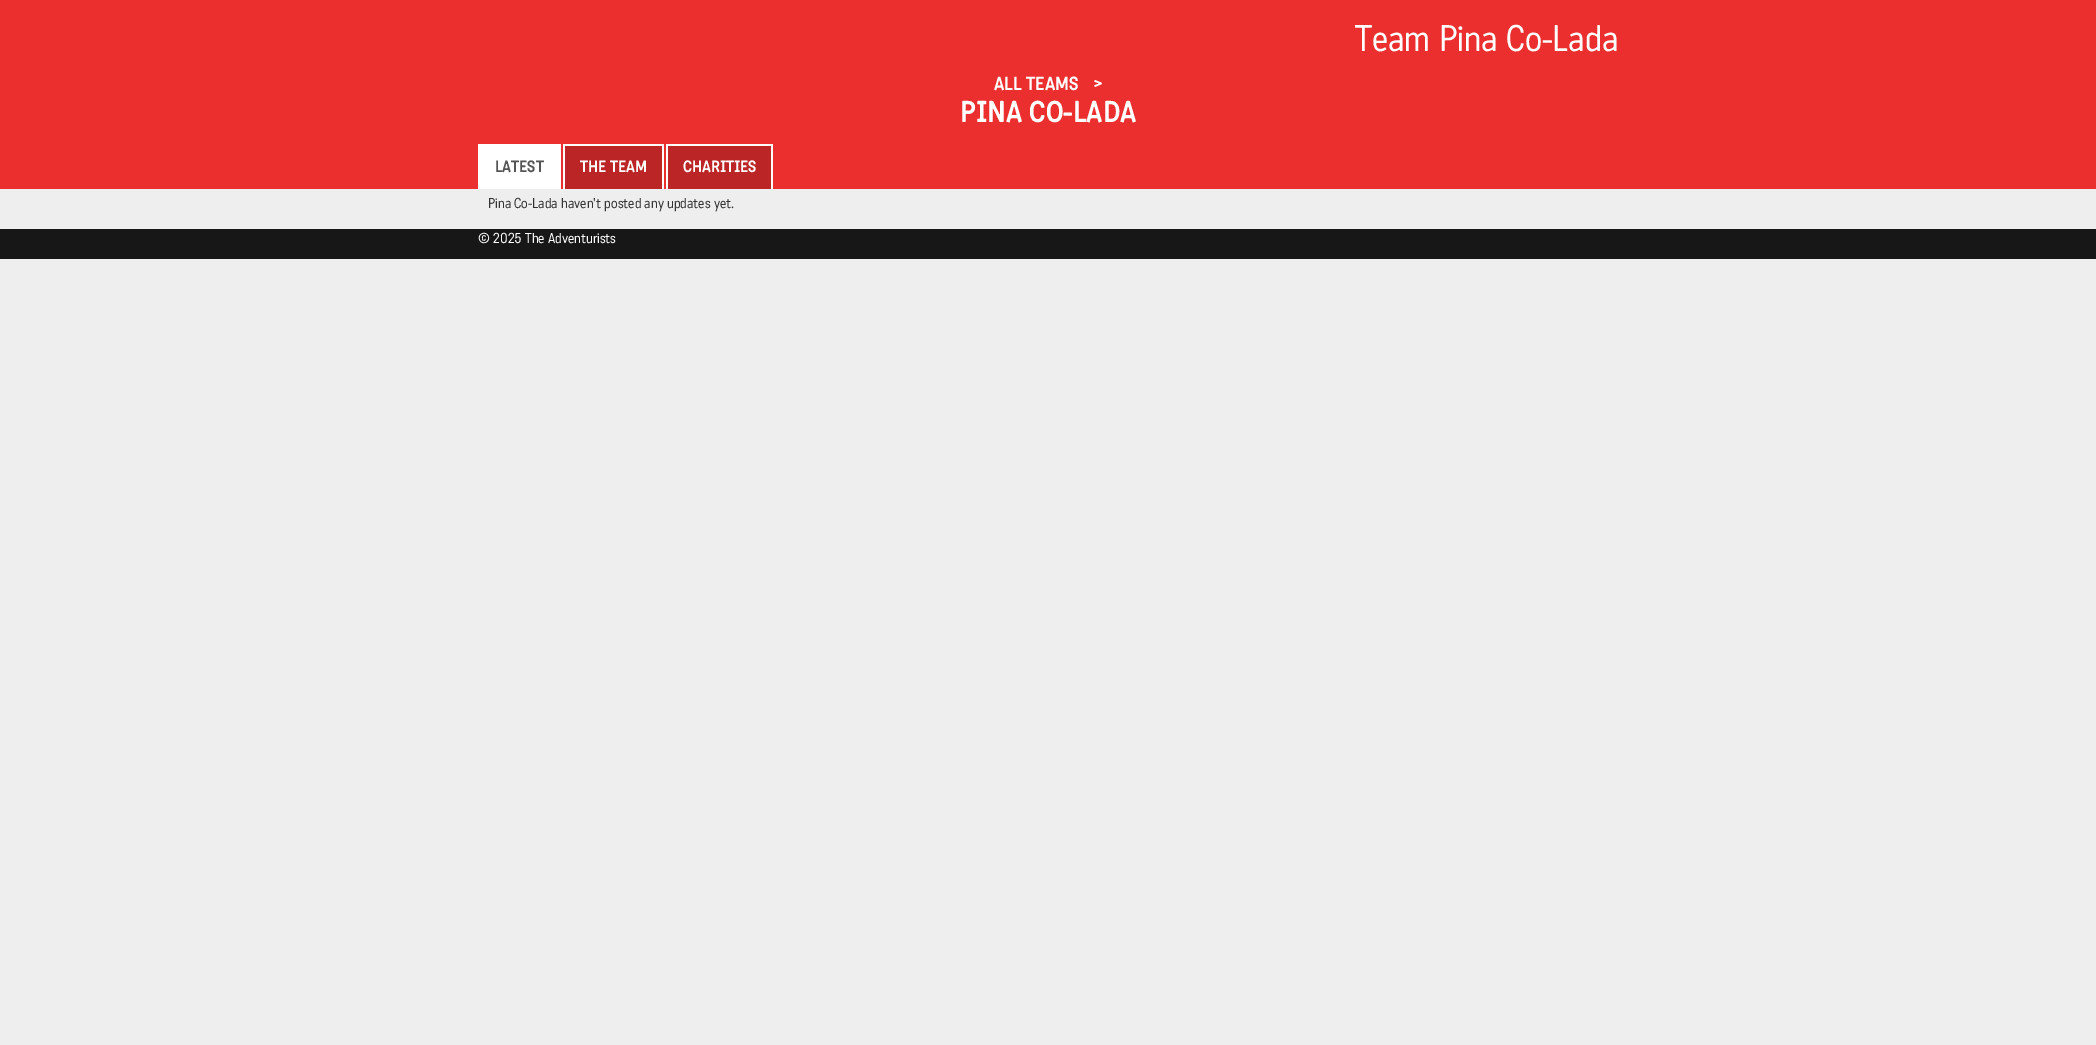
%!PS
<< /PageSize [2096 1045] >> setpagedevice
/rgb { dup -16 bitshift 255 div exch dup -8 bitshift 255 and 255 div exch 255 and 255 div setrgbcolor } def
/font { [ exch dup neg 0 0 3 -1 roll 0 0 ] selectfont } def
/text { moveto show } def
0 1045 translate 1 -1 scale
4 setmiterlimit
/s1 { /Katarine-Regular 36 font 16#FFFFFF rgb } def
/s2 { /Katarine-SemiBold 18.5 font 16#FFFFFF rgb } def
/s3 { /Katarine-SemiBold 29.25 font 16#FFFFFF rgb } def
/s4 { /Katarine-SemiBold 16 font 16#555555 rgb } def
/s5 { /Katarine-SemiBold 16 font 16#FFFFFF rgb } def
/s6 { /Katarine-Regular 14 font 16#333333 rgb } def
/s7 { /Katarine-Regular 14 font 16#FFFFFF rgb } def
16#EEEEEE rgb
0 0 2096 1045 rectfill
16#EB2F2F rgb
0 0 2096 189 rectfill
s1
(Team Pina Co-Lada) 1355 51 text
s2
(ALL TEAMS) 994 90 text
(>) 1094 90 text
s3
(PINA CO-LADA) 960 122 text
478 144 83 45 rectfill
s4
(LATEST) 495 172 text
16#BC2525 rgb
565 146 97 43 rectfill
16#FEFEFE rgb
563 144 101 2 rectfill
662 144 2 45 rectfill
563 144 2 45 rectfill
s5
(THE TEAM) 580 172 text
16#BC2525 rgb
668 146 103 43 rectfill
16#FEFEFE rgb
666 144 107 2 rectfill
771 144 2 45 rectfill
666 144 2 45 rectfill
s5
(CHARITIES) 683 172 text
s6
(Pina Co-Lada haven't posted any updates yet.) 488 208 text
16#171717 rgb
0 229 2096 30 rectfill
s7
(© 2025 The Adventurists) 478 243 text
showpage
